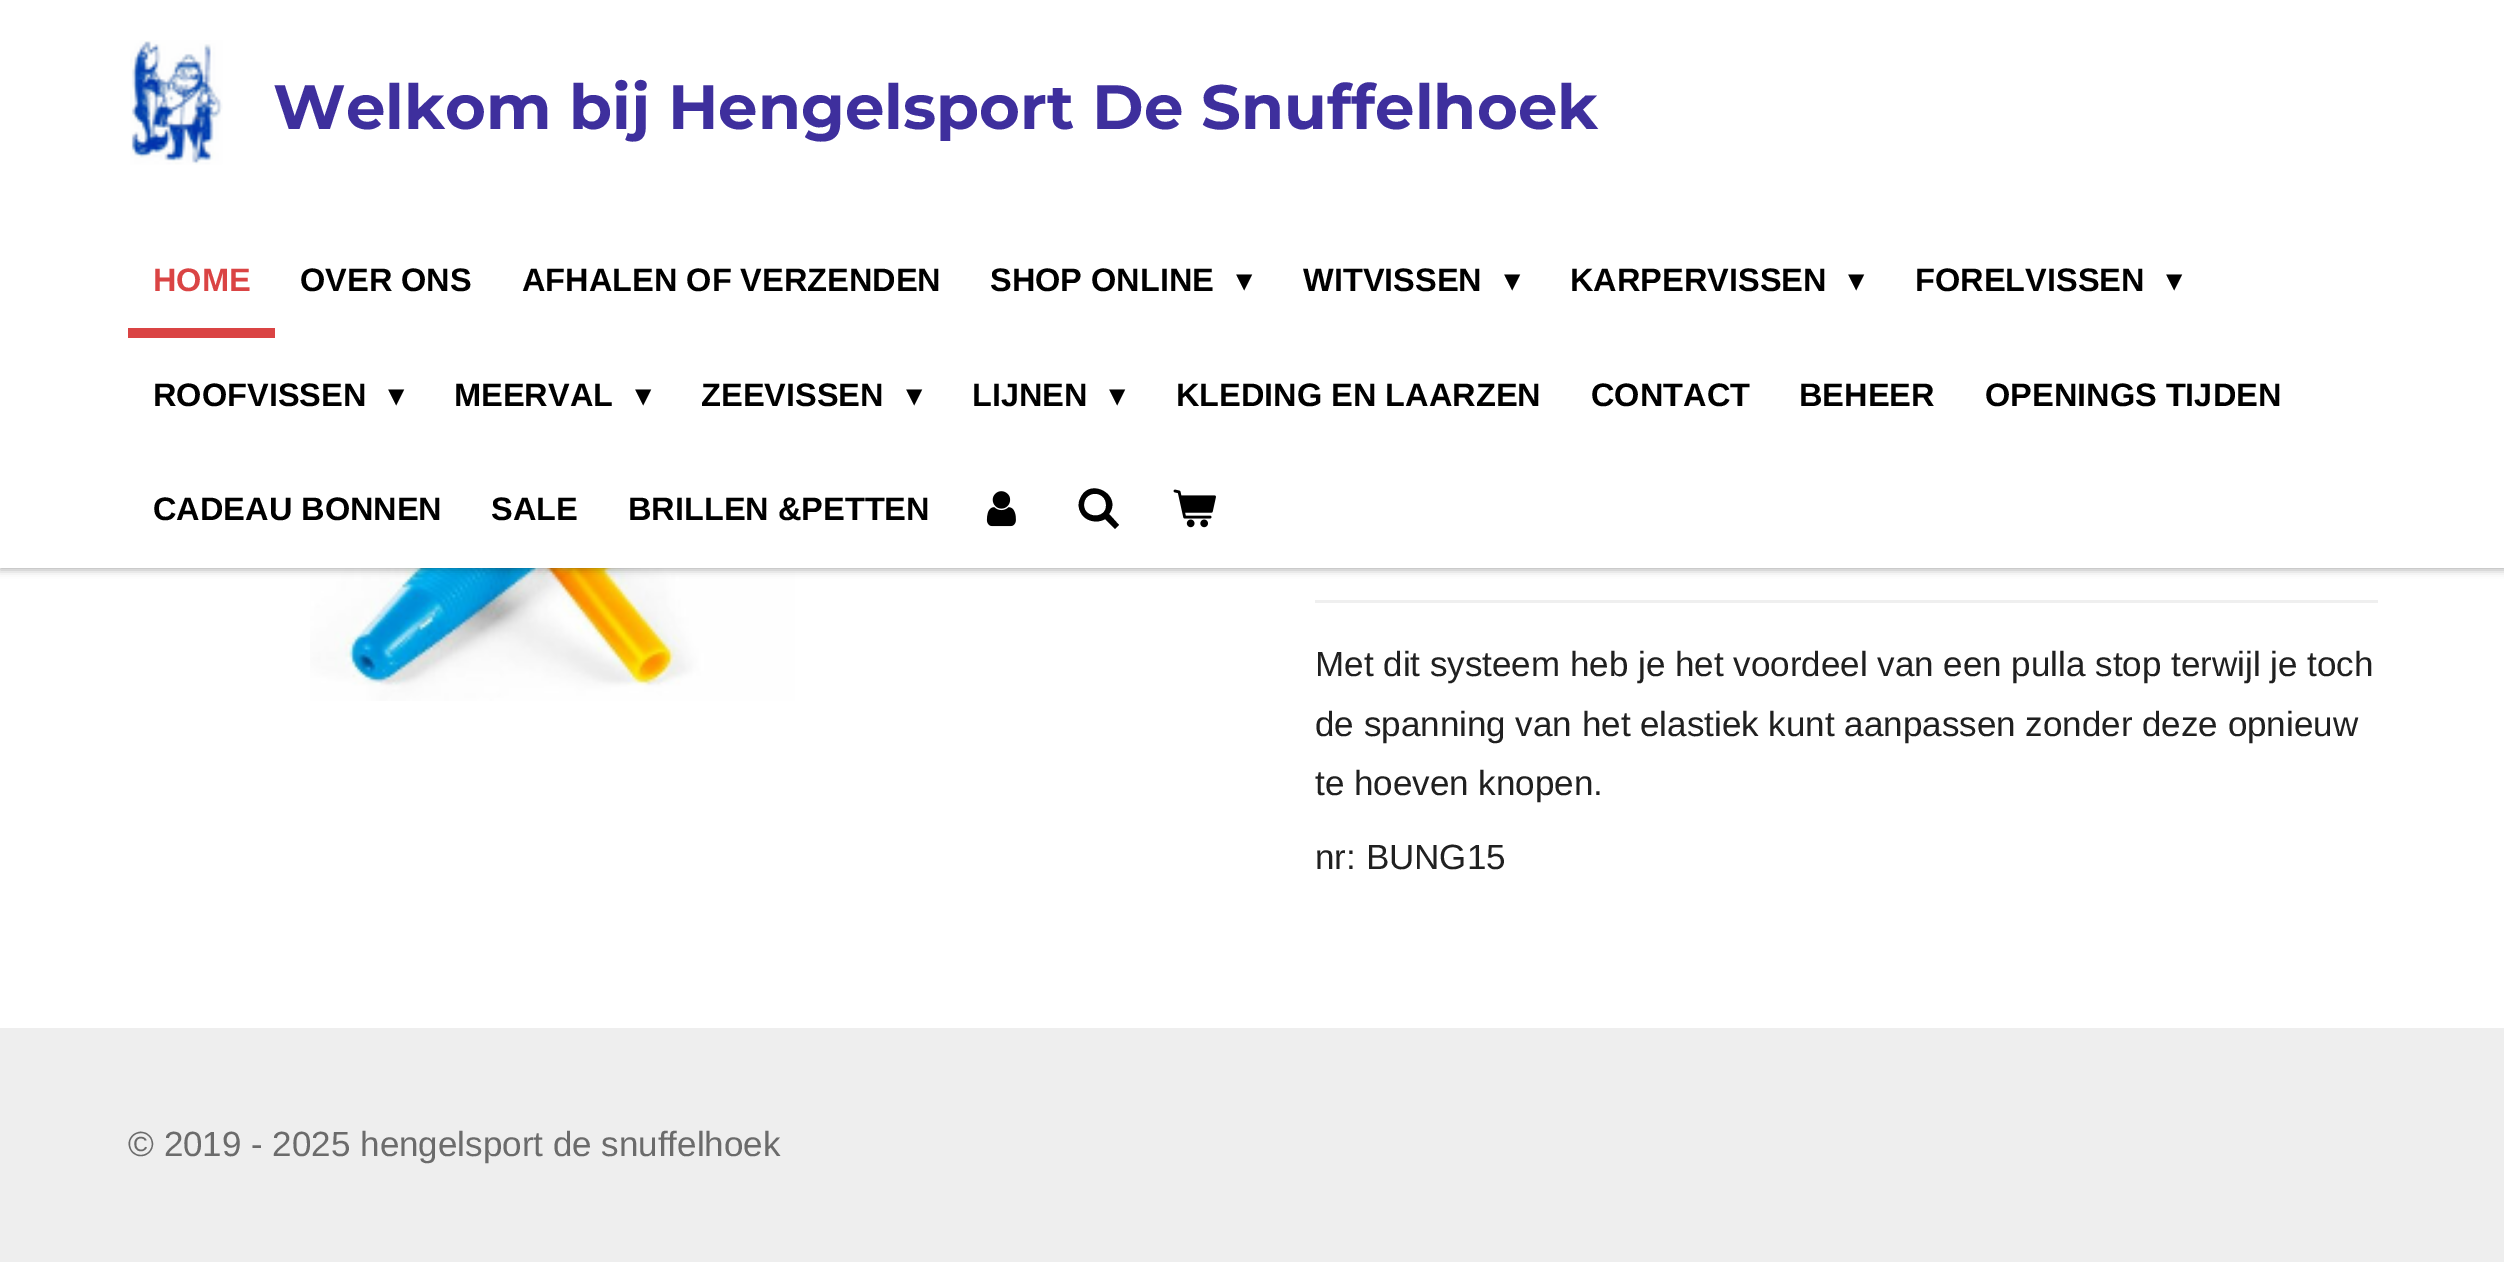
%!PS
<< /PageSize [2504 1262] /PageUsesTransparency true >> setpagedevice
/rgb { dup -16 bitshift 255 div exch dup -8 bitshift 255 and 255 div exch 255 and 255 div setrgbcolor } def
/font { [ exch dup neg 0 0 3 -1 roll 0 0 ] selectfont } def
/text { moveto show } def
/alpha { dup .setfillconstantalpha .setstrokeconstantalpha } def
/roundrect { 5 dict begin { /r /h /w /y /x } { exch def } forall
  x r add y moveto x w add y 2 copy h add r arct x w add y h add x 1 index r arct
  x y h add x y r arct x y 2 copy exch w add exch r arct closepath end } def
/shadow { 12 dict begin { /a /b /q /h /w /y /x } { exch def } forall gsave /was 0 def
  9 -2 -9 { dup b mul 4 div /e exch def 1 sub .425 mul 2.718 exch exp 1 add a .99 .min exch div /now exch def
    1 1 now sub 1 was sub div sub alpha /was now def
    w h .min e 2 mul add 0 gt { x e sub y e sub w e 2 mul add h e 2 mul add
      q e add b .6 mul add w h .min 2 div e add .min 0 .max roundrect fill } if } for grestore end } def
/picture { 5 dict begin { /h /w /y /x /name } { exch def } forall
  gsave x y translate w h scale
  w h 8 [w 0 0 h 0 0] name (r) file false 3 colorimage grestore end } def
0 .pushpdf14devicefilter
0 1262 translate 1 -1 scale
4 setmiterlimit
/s1 { /Montserrat-Bold 62.5 font 16#3E2F9D rgb } def
/s2 { /LiberationSans-Bold 32.5 font 16#DA4444 rgb } def
/s3 { /LiberationSans-Bold 32.5 font 16#000000 rgb } def
/s4 { /DejaVuSans-Regular 32.5 font 16#000000 rgb } def
/s5 { /LiberationSans-Regular 35 font 16#202020 rgb } def
/s6 { /LiberationSans-Regular 35 font 16#6B6B6B rgb } def
16#FFFFFF rgb
0 0 2504 1262 rectfill
(pic4.raw) 310 568 485 133 picture
16#000000 rgb
0 3 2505 567 0 4 0.3 shadow
16#FFFFFF rgb
0 0 2504 568 rectfill
(pic1.raw) 130 40 93 125 picture
s1
(Welkom bij Hengelsport De Snuffelhoek) 273 129 text
16#DA4444 rgb
128 328 147 10 rectfill
s2
(HOME) 153 291 text
s3
(OVER ONS) 300 291 text
(AFHALEN OF VERZENDEN) 522 291 text
(SHOP ONLINE) 990 291 text
s4
(▾) 1236 291 text
s3
(WITVISSEN) 1303 291 text
s4
(▾) 1504 291 text
s3
(KARPERVISSEN) 1570 291 text
s4
(▾) 1848 291 text
s3
(FORELVISSEN) 1915 291 text
s4
(▾) 2166 291 text
s3
(ROOFVISSEN) 153 406 text
s4
(▾) 388 406 text
s3
(MEERVAL) 454 406 text
s4
(▾) 635 406 text
s3
(ZEEVISSEN) 701 406 text
s4
(▾) 906 406 text
s3
(LIJNEN) 972 406 text
s4
(▾) 1109 406 text
s3
(KLEDING EN LAARZEN) 1176 406 text
(CONTACT) 1591 406 text
(BEHEER) 1799 406 text
(OPENINGS TIJDEN) 1985 406 text
(CADEAU BONNEN) 153 520 text
(SALE) 491 520 text
(BRILLEN &PETTEN) 628 520 text
(pic2.raw) 986 491 30 36 picture
1109 514 moveto 1119 525 lineto 1115 529 lineto 1105 519 lineto 1097 524 1085 521 1081 513 curveto 1078 508 1078 503 1080 499 curveto 1089 476 1123 495 1109 514 curveto closepath 1106 505 moveto 1106 490 1084 490 1084 505 curveto 1084 519 1107 519 1106 505 curveto closepath fill
(pic3.raw) 1173 489 43 39 picture
16#EFEFEF rgb
1315 600 1063 3 rectfill
s5
(Met dit systeem heb je het voordeel van een pulla stop terwijl je toch) 1315 676 text
(de spanning van het elastiek kunt aanpassen zonder deze opnieuw) 1315 736 text
(te hoeven knopen.) 1315 795 text
(nr: BUNG15) 1315 869 text
16#EEEEEE rgb
0 1028 2504 234 rectfill
s6
(© 2019 - 2025 hengelsport de snuffelhoek) 128 1156 text
.poppdf14devicefilter showpage
